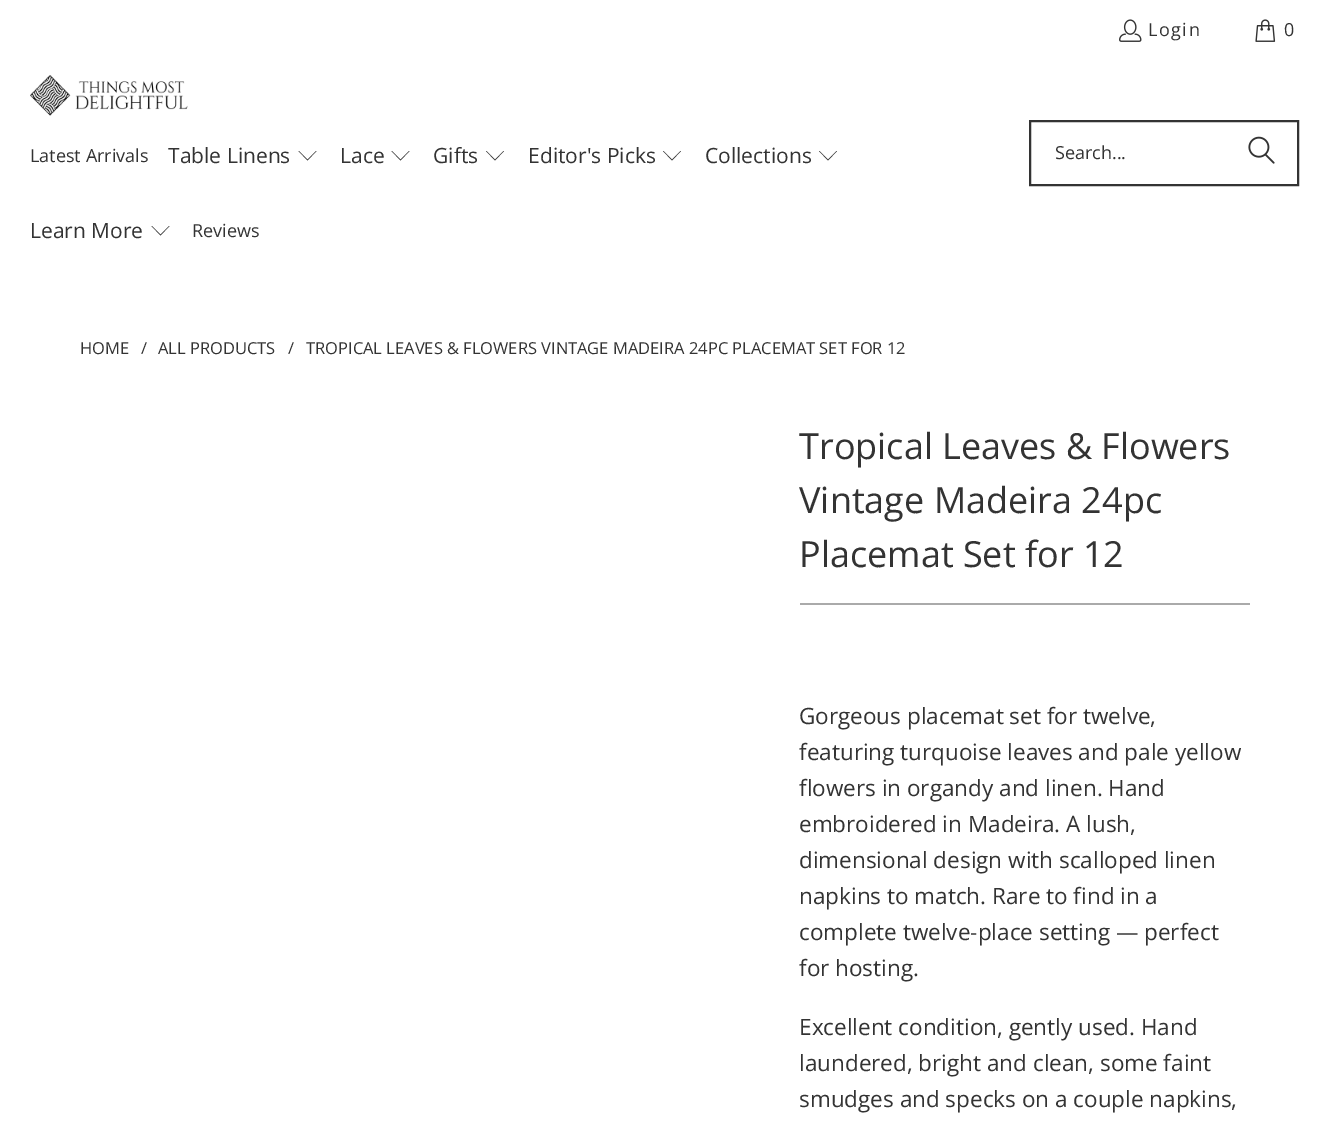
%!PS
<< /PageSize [1328 1124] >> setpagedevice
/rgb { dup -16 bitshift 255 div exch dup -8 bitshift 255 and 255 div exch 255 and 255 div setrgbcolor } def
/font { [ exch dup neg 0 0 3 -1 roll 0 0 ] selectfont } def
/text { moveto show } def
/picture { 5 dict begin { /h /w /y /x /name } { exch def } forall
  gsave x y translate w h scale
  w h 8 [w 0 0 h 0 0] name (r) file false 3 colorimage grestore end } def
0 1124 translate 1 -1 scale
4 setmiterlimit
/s1 { /OpenSans-Regular 18 font 16#333333 rgb } def
/s2 { /OpenSans-Regular 21 font 16#333333 rgb } def
/s3 { /OpenSans-Regular 16.5 font 16#333333 rgb } def
/s4 { /OpenSans-Regular 36 font 16#333333 rgb } def
/s5 { /OpenSans-Regular 22.5 font 16#333333 rgb } def
16#FFFFFF rgb
0 0 1328 1124 rectfill
(pic1.raw) 1119 19 23 23 picture
/OpenSans-Regular 18 font
16#333333 rgb
1148 36 moveto 1.5 0 (Login) ashow
(pic2.raw) 1255 19 21 23 picture
1284 36 moveto 1.5 0 (0) ashow
(pic3.raw) 30 75 158 41 picture
(Latest Arrivals) 30 162 text
s2
(Table Linens) 168 163 text
307.5 160.5 moveto 298.5 151 lineto 299 151 lineto 307.5 159.5 lineto 316 151 lineto 316.5 151 lineto closepath fill
(Lace) 340 163 text
400.5 160.5 moveto 391.5 151 lineto 392 151 lineto 400.5 159.5 lineto 409 151 lineto 409.5 151 lineto closepath fill
(Gifts) 433 163 text
495 160.5 moveto 486 151 lineto 486.5 151 lineto 495 159.5 lineto 503.5 151 lineto 504 151 lineto closepath fill
(Editor's Picks) 528 163 text
672 160.5 moveto 663 151 lineto 663.5 151 lineto 672 159.5 lineto 680.5 151 lineto 681 151 lineto closepath fill
(Collections) 705 163 text
828 160.5 moveto 819 151 lineto 819.5 151 lineto 828 159.5 lineto 836.5 151 lineto 837 151 lineto closepath fill
(Learn More) 30 238 text
160.5 235.5 moveto 151.5 226 lineto 152 226 lineto 160.5 234.5 lineto 169 226 lineto 169.5 226 lineto closepath fill
s1
(Reviews) 192 237 text
2 setlinewidth
1030 121 268 64 rectstroke
(Search...) 1055 159 text
(pic4.raw) 1248 136 27 28 picture
s3
(HOME) 80 354 text
(/) 141 354 text
(ALL PRODUCTS) 158 354 text
(/) 288 354 text
(TROPICAL LEAVES & FLOWERS VINTAGE MADEIRA 24PC PLACEMAT SET FOR 12) 306 354 text
s4
(Tropical Leaves & Flowers) 799 459 text
(Vintage Madeira 24pc) 799 513 text
(Placemat Set for 12) 799 567 text
16#AAAAAA rgb
800 603 450 2 rectfill
s5
(Gorgeous placemat set for twelve,) 799 724 text
(featuring turquoise leaves and pale yellow) 799 760 text
(flowers in organdy and linen. Hand) 799 796 text
(embroidered in Madeira. A lush,) 799 832 text
(dimensional design with scalloped linen) 799 868 text
(napkins to match. Rare to find in a) 799 904 text
(complete twelve-place setting — perfect) 799 940 text
(for hosting.) 799 976 text
(Excellent condition, gently used. Hand) 799 1035 text
(laundered, bright and clean, some faint) 799 1071 text
(smudges and specks on a couple napkins,) 799 1107 text
showpage
